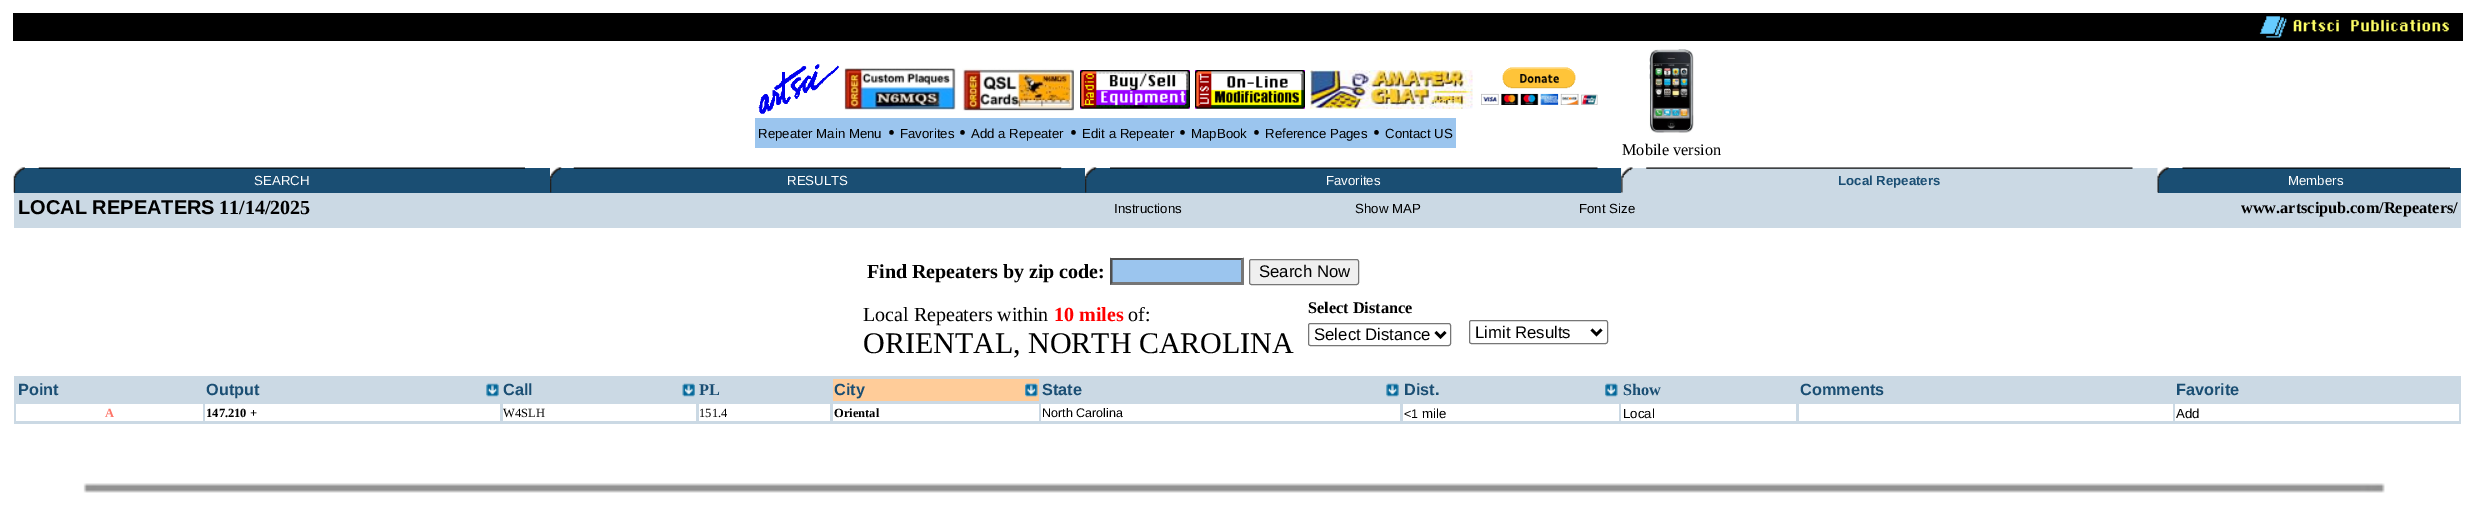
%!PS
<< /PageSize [2475 514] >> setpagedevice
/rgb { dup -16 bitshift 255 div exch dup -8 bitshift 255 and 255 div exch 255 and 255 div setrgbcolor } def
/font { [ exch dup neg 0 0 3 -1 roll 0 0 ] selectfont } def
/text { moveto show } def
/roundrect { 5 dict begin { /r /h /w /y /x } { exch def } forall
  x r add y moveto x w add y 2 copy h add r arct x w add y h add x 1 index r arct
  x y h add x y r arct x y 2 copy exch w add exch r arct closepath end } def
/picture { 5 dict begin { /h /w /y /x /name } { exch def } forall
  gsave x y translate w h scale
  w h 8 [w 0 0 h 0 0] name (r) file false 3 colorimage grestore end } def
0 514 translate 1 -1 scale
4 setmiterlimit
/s1 { /LiberationSans-Regular 13.25 font 16#000000 rgb } def
/s2 { /LiberationSerif-Regular 20 font 16#000000 rgb } def
/s3 { /LiberationSerif-Regular 16.25 font 16#000000 rgb } def
/s4 { /LiberationSans-Regular 13.25 font 16#FFFFFF rgb } def
/s5 { /LiberationSans-Bold 13.25 font 16#1A4E73 rgb } def
/s6 { /LiberationSans-Bold 20 font 16#000000 rgb } def
/s7 { /LiberationSerif-Bold 20 font 16#000000 rgb } def
/s8 { /LiberationSerif-Bold 16.25 font 16#000000 rgb } def
/s9 { /LiberationSans-Regular 16.75 font 16#000000 rgb } def
/s10 { /LiberationSerif-Bold 20 font 16#FF0000 rgb } def
/s11 { /LiberationSerif-Regular 30 font 16#000000 rgb } def
/s12 { /LiberationSans-Bold 16.25 font 16#1A4E73 rgb } def
/s13 { /LiberationSerif-Bold 16.25 font 16#1A4E73 rgb } def
/s14 { /LiberationSerif-Bold 12.5 font 16#FE7569 rgb } def
/s15 { /LiberationSerif-Bold 12.5 font 16#000000 rgb } def
/s16 { /LiberationSerif-Regular 12.5 font 16#000000 rgb } def
/s17 { /LiberationSans-Regular 12.5 font 16#000000 rgb } def
16#FFFFFF rgb
0 0 2475 514 rectfill
16#000000 rgb
13 13 2450 28 rectfill
(pic1.raw) 2259 16 190 22 picture
(pic2.raw) 758 64 81 50 picture
(pic3.raw) 844 67 112 43 picture
(pic4.raw) 962 68 112 43 picture
(pic5.raw) 1080 70 110 39 picture
(pic6.raw) 1195 70 110 39 picture
(pic7.raw) 1310 70 163 39 picture
(pic8.raw) 1481 67 117 38 picture
16#9BC5EE rgb
755 118 701 30 rectfill
s1
(Repeater Main Menu) 758 138 text
s2
(•) 888 139 text
s1
(Favorites) 900 138 text
s2
(•) 959 139 text
s1
(Add a Repeater) 971 138 text
s2
(•) 1070 139 text
s1
(Edit a Repeater) 1082 138 text
s2
(•) 1179 139 text
s1
(MapBook) 1191 138 text
s2
(•) 1253 139 text
s1
(Reference Pages) 1265 138 text
s2
(•) 1373 139 text
s1
(Contact US) 1385 138 text
(pic9.raw) 1649 49 45 84 picture
s3
(Mobile version) 1622 155 text
16#1A4E73 rgb
14 168 2447 25 rectfill
(pic10.raw) 13 167 12 26 picture
(pic11.raw) 550 167 12 26 picture
(pic16.raw) 573 167 489 2 picture
1061 168 1 1 rectfill
(pic12.raw) 1085 167 12 26 picture
16#CBD9E4 rgb
1621 168 537 25 rectfill
(pic13.raw) 1621 167 12 26 picture
(pic14.raw) 2157 167 12 26 picture
(pic15.raw) 38 167 487 2 picture
s4
(SEARCH) 254 185 text
(RESULTS) 787 185 text
(pic17.raw) 1110 167 488 2 picture
(Favorites) 1326 185 text
(pic18.raw) 1646 167 487 2 picture
s5
(Local Repeaters) 1838 185 text
(pic19.raw) 2182 167 268 2 picture
s4
(Members) 2288 185 text
16#CBD9E4 rgb
14 193 2447 35 rectfill
s6
(LOCAL REPEATERS) 18 214 text
s7
(11/14/2025) 219 214 text
s1
(Instructions) 1114 213 text
(Show MAP) 1355 213 text
(Font Size) 1579 213 text
s8
(www.artscipub.com/Repeaters/) 2241 213 text
s7
(Find Repeaters by zip code:) 867 278 text
16#9BC5EE rgb
1110 258 134 27 rectfill
16#4F4F4F rgb
1110 258 moveto 1244 258 lineto 1241 260 lineto 1112 260 lineto closepath fill
16#767676 rgb
1244 257.5 moveto 1244 285 lineto 1241 282.5 lineto 1241 260 lineto closepath fill
1244 285 moveto 1110 285 lineto 1112 282 lineto 1241 282 lineto closepath fill
16#4F4F4F rgb
1110 285 moveto 1110 257.5 lineto 1112.5 260 lineto 1112.5 282.5 lineto closepath fill
16#EFEFEF rgb
1249.5 259.5 109 25 2 roundrect gsave fill grestore
16#767676 rgb
stroke
s9
(Search Now) 1259 277 text
s2
(Local Repeaters within) 863 321 text
s10
(10 miles) 1054 321 text
s2
(of:) 1128 321 text
s11
(ORIENTAL, NORTH CAROLINA) 863 353 text
s8
(Select Distance) 1308 313 text
16#767676 rgb
1308.5 323.5 142 22 2 roundrect stroke
16#000000 rgb
2.5 setlinewidth
1435.5 332 moveto 1440.5 337 lineto 1445.5 332 lineto stroke
s9
(Select Distance) 1314 340 text
16#767676 rgb
1 setlinewidth
1469.5 320.5 138 23 2 roundrect stroke
16#000000 rgb
2.5 setlinewidth
1591.5 329.5 moveto 1596.5 334.5 lineto 1601.5 329.5 lineto stroke
(Limit Results) 1475 338 text
16#CBD9E4 rgb
14 376 2447 48 rectfill
s12
(Point) 18 395 text
(Output) 206 395 text
(pic20.raw) 486 383 13 14 picture
(Call) 503 395 text
(pic21.raw) 682 383 13 14 picture
s13
(PL) 699 395 text
16#FFCC99 rgb
833 379 206 22 rectfill
s12
(City) 834 395 text
(pic22.raw) 1025 383 13 14 picture
(State) 1042 395 text
(pic20.raw) 1386 383 13 14 picture
(Dist.) 1404 395 text
(pic23.raw) 1605 383 13 14 picture
s13
(Show) 1623 395 text
s12
(Comments) 1800 395 text
(Favorite) 2176 395 text
16#FFFFFF rgb
16 404 187 17 rectfill
s14
(A) 105 417 text
16#FFFFFF rgb
205 404 295 17 rectfill
s15
(147.210 +) 206 417 text
16#FFFFFF rgb
503 404 193 17 rectfill
s16
(W4SLH) 503 417 text
16#FFFFFF rgb
699 404 131 17 rectfill
s16
(151.4) 699 417 text
16#FFFFFF rgb
833 404 206 17 rectfill
s15
(Oriental) 834 417 text
16#FFFFFF rgb
1041 404 359 17 rectfill
s17
(North Carolina) 1042 417 text
16#FFFFFF rgb
1403 404 216 17 rectfill
s17
(<1) 1404 418 text
s1
(mile) 1422 418 text
16#FFFFFF rgb
1621 404 175 17 rectfill
s1
(Local) 1623 418 text
16#FFFFFF rgb
1799 404 374 17 rectfill
2175 404 284 17 rectfill
s1
(Add) 2176 418 text
(pic24.raw) 83 483 2302 10 picture
showpage
